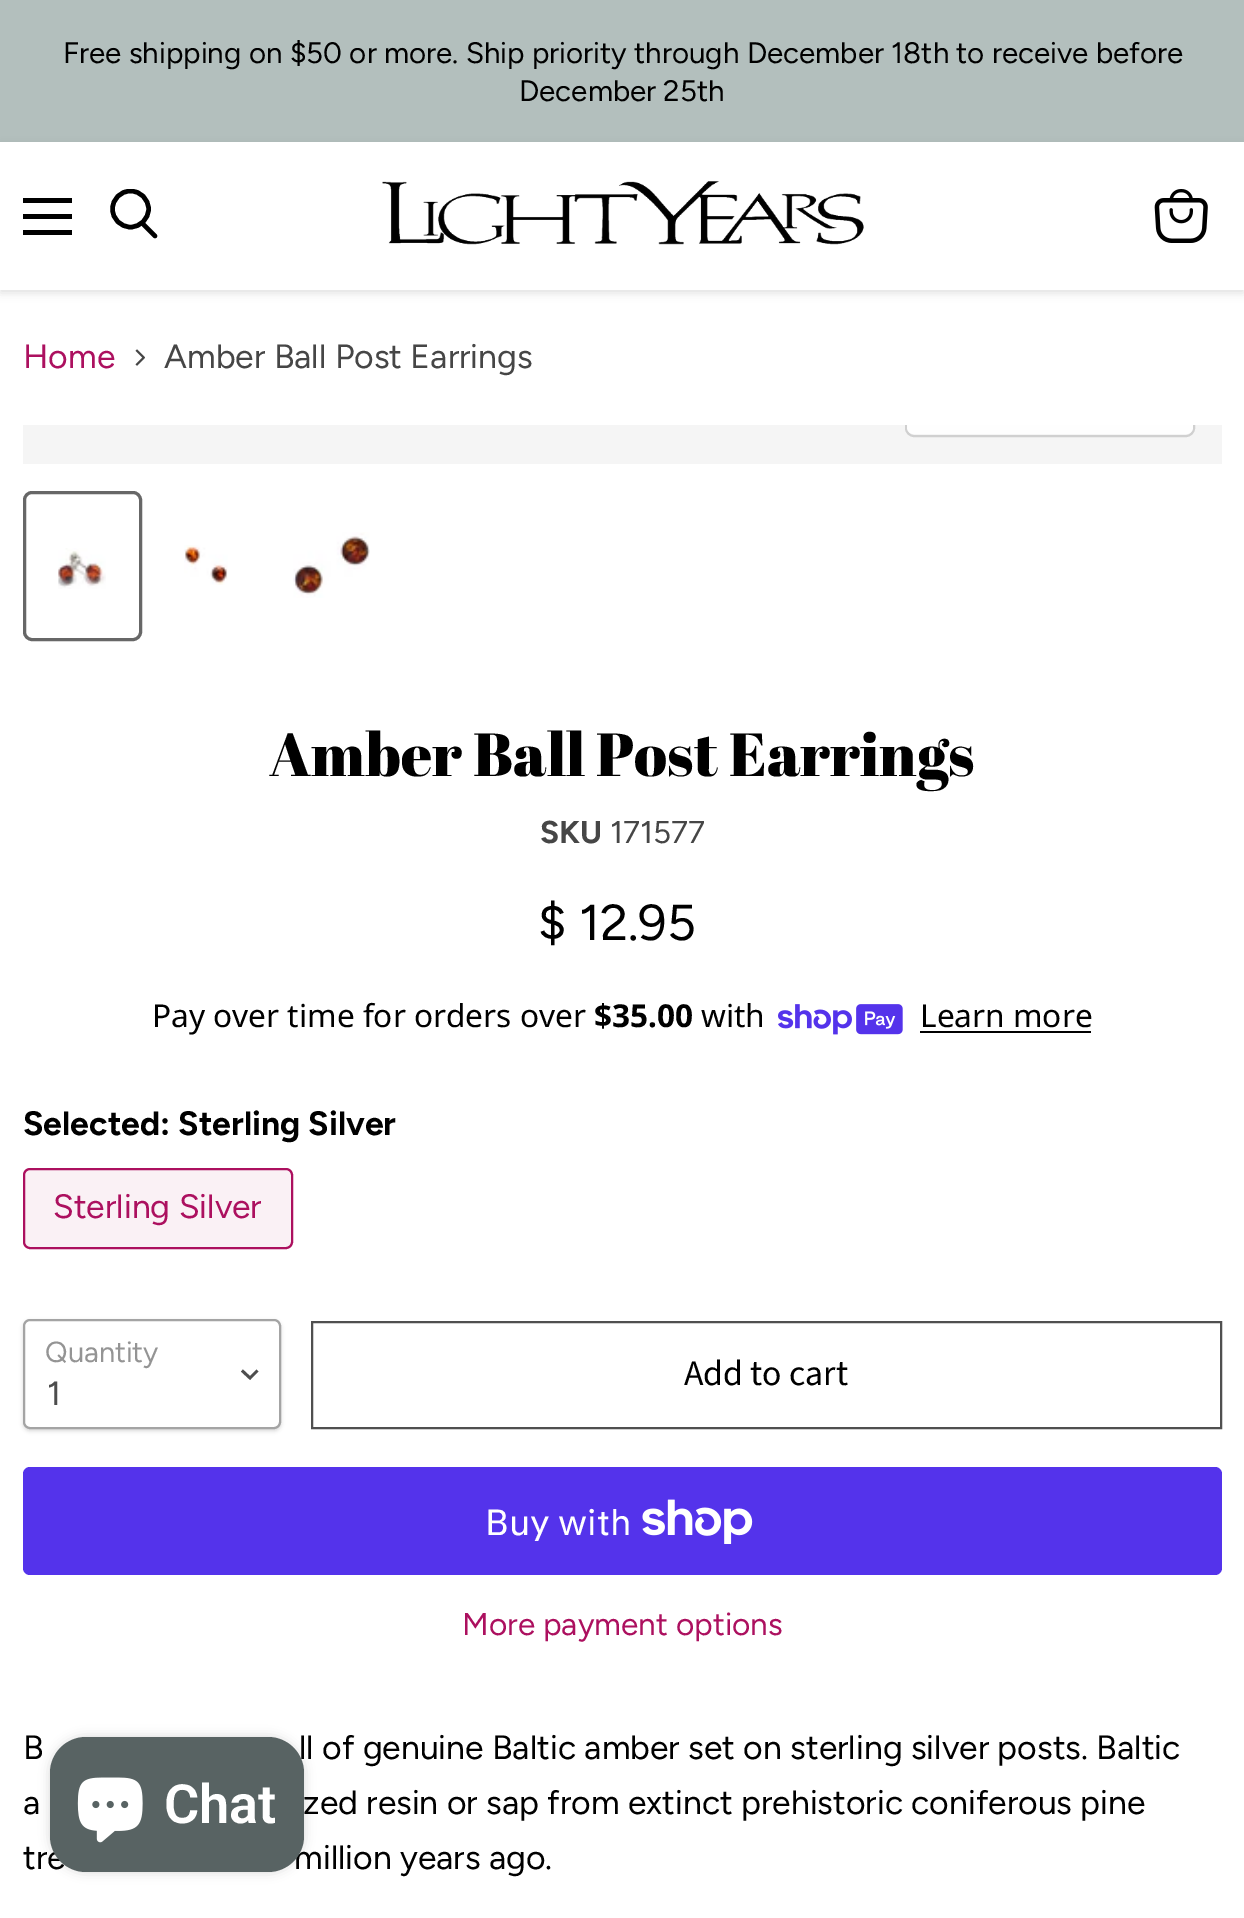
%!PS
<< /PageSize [1244 1918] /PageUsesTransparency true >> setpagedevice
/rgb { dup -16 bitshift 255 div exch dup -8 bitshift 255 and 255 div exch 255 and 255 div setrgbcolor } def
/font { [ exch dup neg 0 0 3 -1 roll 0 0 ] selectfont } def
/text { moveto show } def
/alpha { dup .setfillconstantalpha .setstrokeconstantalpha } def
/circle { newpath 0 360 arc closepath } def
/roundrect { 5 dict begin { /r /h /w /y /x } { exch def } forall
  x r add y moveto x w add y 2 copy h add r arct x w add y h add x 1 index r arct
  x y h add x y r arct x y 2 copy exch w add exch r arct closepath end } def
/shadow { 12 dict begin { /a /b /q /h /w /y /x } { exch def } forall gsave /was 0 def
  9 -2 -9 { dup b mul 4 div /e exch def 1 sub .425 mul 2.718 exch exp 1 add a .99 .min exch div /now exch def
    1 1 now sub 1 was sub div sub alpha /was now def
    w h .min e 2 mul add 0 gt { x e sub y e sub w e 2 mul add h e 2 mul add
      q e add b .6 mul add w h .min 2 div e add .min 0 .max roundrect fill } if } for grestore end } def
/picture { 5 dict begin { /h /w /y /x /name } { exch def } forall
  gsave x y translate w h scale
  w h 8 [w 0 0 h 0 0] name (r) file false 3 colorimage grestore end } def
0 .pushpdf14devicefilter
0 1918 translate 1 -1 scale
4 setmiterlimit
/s1 { /Figtree-Regular 29.55 font 16#000000 rgb } def
/s2 { /Figtree-Regular 33.75 font 16#AC105F rgb } def
/s3 { /Figtree-Regular 33.75 font 16#464646 rgb } def
/s4 { /AbrilFatface-Regular 60.75 font 16#000000 rgb } def
/s5 { /Figtree-Bold 31.5 font 16#464646 rgb } def
/s6 { /Figtree-Regular 31.5 font 16#464646 rgb } def
/s7 { /Figtree-Regular 50.5 font 16#000000 rgb } def
/s8 { /NotoSans-Regular 31.6 font 16#000000 rgb } def
/s9 { /NotoSans-Bold 31.6 font 16#000000 rgb } def
/s10 { /Figtree-Bold 33.75 font 16#000000 rgb } def
/s11 { /Figtree-Regular 29 font 16#949494 rgb } def
/s12 { /Figtree-Regular 33.75 font 16#4D4D4D rgb } def
/s13 { /SourceSansPro-Regular 35.75 font 16#000000 rgb } def
/s14 { /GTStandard-Regular 36 font 16#FFFFFF rgb } def
/s15 { /Figtree-Regular 31.6 font 16#AC105F rgb } def
/s16 { /Figtree-Regular 33.75 font 16#000000 rgb } def
/s17 { /Roboto-SemiBold 54 font 16#FFFFFF rgb } def
16#FFFFFF rgb
0 0 1244 1918 rectfill
16#B3BFBD rgb
0 0 1244 142 rectfill
s1
(Free shipping on $50 or more. Ship priority through December 18th to receive before) 63 63 text
(December 25th) 519 101 text
16#808080 rgb
0 144 1244 149 0 4.5 0.25 shadow
16#FFFFFF rgb
0 142 1244 148 rectfill
16#000000 rgb
23 198 49 5 rectfill
23 214 49 5 rectfill
23 230 49 5 rectfill
4.5 setlinewidth
1 setlinecap
155 236 moveto 143 224 lineto stroke
gsave
108 189 52 54 rectclip
0 setlinecap
130.5 209 18 circle stroke
grestore
(pic1.raw) 382 181 482 64 picture
(pic2.raw) 1154 189 54 54 picture
s2
(Home) 23 368 text
(pic3.raw) 135 349 10 17 picture
s3
(Amber Ball Post Earrings) 164 368 text
16#F5F5F5 rgb
23 425 1199 39 rectfill
gsave
23 425 1199 39 rectclip
16#D0D0D0 rgb
2 setlinewidth
0 setlinecap
906 372 288 64 8 roundrect stroke
grestore
0.9 alpha
16#FFFFFF rgb
907 425 moveto 1193 425 lineto 1193 427 lineto 1193 431 1190 434 1186 434 curveto 914 434 lineto 910 434 907 431 907 427 curveto closepath fill
1 alpha
16#676767 rgb
3 setlinewidth
0 setlinecap
24.5 492.5 116 147 7.5 roundrect stroke
(pic4.raw) 58 548 48 41 picture
(pic5.raw) 184 545 44 40 picture
(pic6.raw) 293 532 77 66 picture
s4
(Amber Ball Post Earrings) 269 776 text
s5
(SKU) 540 843 text
s6
(171577) 610 843 text
s7
($ 12.95) 538 940 text
s8
(Pay over time for orders over) 152 1027 text
s9
($35.00) 594 1027 text
s8
(with) 701 1027 text
(pic7.raw) 778 1004 125 31 picture
(Learn more) 920 1027 text
920 1031 171 2 rectfill
s10
(Selected: Sterling Silver) 23 1135 text
16#FAF1F5 rgb
24 1169 268 79 6 roundrect gsave fill grestore
16#AC105F rgb
2 setlinewidth
stroke
s2
(Sterling Silver) 53 1218 text
16#000000 rgb
23 1321 258 110 7 2 0.15 shadow
16#FFFFFF rgb
24 1320 256 108 6 roundrect gsave fill grestore
16#A4A4A4 rgb
stroke
s11
(Quantity) 45 1362 text
16#4D4D4D rgb
2.8 setlinewidth
2 setlinecap
250 1378 moveto 256.5 1371.5 lineto 250 1378 moveto 243 1371.5 lineto stroke
s12
(1) 47 1405 text
16#505050 rgb
2 setlinewidth
0 setlinecap
312 1322 909 106 rectstroke
s13
(Add to cart) 684 1385 text
16#5433EB rgb
23 1467 1199 108 7 roundrect fill
s14
(Buy with) 485 1535 text
(pic8.raw) 642 1499 111 45 picture
s15
(More payment options) 462 1635 text
s16
(B) 23 1759 text
(ll of genuine Baltic amber set on sterling silver posts. Baltic) 299 1759 text
(a) 23 1814 text
(zed resin or sap from extinct prehistoric coniferous pine) 303 1814 text
(tre) 23 1869 text
(million years ago.) 294 1869 text
50 1737 254 135 36 5.5 0.15 shadow
16#586363 rgb
50 1737 254 135 36 roundrect fill
(pic9.raw) 77 1777 66 66 picture
s17
(Chat) 164 1823 text
.poppdf14devicefilter showpage
